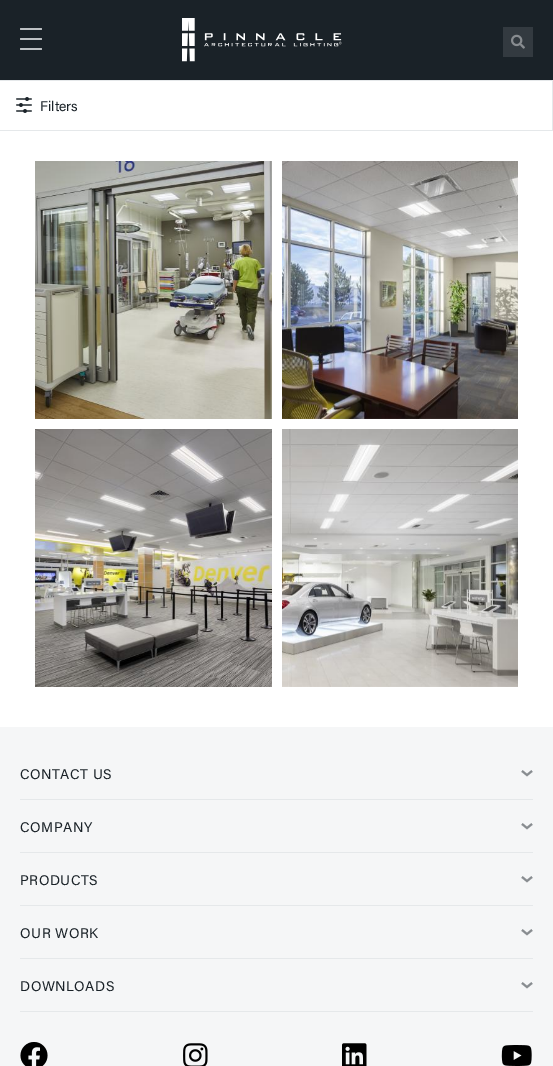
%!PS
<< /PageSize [553 1066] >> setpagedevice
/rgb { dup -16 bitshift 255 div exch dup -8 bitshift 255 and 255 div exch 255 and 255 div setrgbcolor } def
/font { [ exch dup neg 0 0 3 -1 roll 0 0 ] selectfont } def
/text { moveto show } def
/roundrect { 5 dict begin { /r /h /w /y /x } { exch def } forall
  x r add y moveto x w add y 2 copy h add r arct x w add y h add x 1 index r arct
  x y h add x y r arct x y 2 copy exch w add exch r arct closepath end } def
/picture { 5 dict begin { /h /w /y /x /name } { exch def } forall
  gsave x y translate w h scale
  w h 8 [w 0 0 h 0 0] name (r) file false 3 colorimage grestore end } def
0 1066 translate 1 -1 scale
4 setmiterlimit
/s1 { /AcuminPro-Regular 14 font 16#1A2228 rgb } def
16#FFFFFF rgb
0 0 553 1066 rectfill
16#1A2228 rgb
0 0 553 80 rectfill
16#BDC1C4 rgb
20 48 22 2 1 roundrect fill
20 28 22 2 1 roundrect fill
20 38 22 2 1 roundrect fill
(pic1.raw) 182 18 160 44 picture
16#333A40 rgb
503 27 30 30 rectfill
(pic2.raw) 511 34 14 15 picture
16#E5E8EA rgb
552 80 1 51 rectfill
0 80 552 1 rectfill
0 130 552 1 rectfill
(pic3.raw) 16 97 16 16 picture
s1
(Filters) 40 111 text
(pic4.raw) 35 161 237 258 picture
(pic5.raw) 282 161 236 258 picture
(pic6.raw) 35 429 237 258 picture
(pic7.raw) 282 429 236 258 picture
16#F5F6F7 rgb
0 727 553 339 rectfill
16#1A2228 rgb
20 779 moveto 0.5 0 (CONTACT US) ashow
16#888C90 rgb
2 setlinewidth
522 771 moveto 527 775 lineto 532 771 lineto stroke
16#E5E8EA rgb
20 799 513 1 rectfill
16#1A2228 rgb
20 832 moveto 0.5 0 (COMPANY) ashow
16#888C90 rgb
522 824 moveto 527 828 lineto 532 824 lineto stroke
16#E5E8EA rgb
20 852 513 1 rectfill
16#1A2228 rgb
20 885 moveto 0.5 0 (PRODUCTS) ashow
16#888C90 rgb
522 877 moveto 527 881 lineto 532 877 lineto stroke
16#E5E8EA rgb
20 905 513 1 rectfill
16#1A2228 rgb
20 938 moveto 0.5 0 (OUR WORK) ashow
16#888C90 rgb
522 930 moveto 527 934 lineto 532 930 lineto stroke
16#E5E8EA rgb
20 958 513 1 rectfill
20 1011 513 1 rectfill
16#1A2228 rgb
20 991 moveto 0.5 0 (DOWNLOADS) ashow
16#888C90 rgb
522 983 moveto 527 987 lineto 532 983 lineto stroke
(pic8.raw) 20 1042 28 24 picture
(pic9.raw) 183 1043 25 23 picture
(pic10.raw) 342 1043 25 23 picture
(pic11.raw) 501 1045 31 21 picture
showpage
